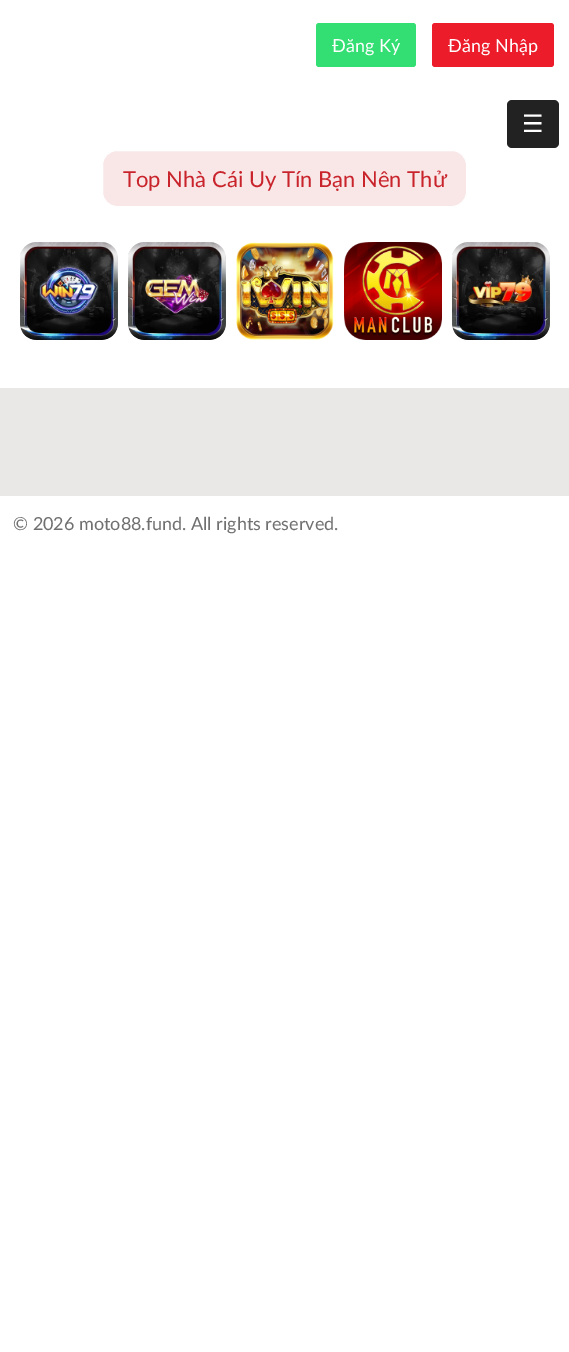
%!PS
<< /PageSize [569 1352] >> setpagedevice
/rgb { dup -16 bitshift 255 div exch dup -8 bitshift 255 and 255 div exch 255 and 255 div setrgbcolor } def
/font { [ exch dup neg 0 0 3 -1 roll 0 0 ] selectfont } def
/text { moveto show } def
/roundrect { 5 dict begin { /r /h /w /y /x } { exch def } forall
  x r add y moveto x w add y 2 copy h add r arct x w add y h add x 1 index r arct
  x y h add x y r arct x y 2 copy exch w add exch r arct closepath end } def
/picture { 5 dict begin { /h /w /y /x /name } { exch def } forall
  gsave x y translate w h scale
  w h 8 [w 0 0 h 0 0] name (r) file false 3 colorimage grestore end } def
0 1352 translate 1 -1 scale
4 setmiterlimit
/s1 { /Lato-Regular 18 font 16#FFFFFF rgb } def
/s2 { /DejaVuSans-Regular 24 font 16#FFFFFF rgb } def
/s3 { /Lato-Regular 22 font 16#C9242B rgb } def
/s4 { /Lato-Regular 18 font 16#707070 rgb } def
16#FFFFFF rgb
0 0 569 1352 rectfill
16#33DF72 rgb
316 23 100 44 3 roundrect fill
s1
(Đăng Ký) 332 52 text
16#EC1C2B rgb
432 23 122 44 3 roundrect fill
s1
(Đăng Nhập) 448 52 text
16#222222 rgb
507 100 52 48 5 roundrect fill
s2
(☰) 522 132 text
16#F9E7E8 rgb
102.5 150.5 364 56 14.5 roundrect gsave fill grestore
16#FFFFFF rgb
stroke
s3
(Top Nhà Cái Uy Tín Bạn Nên Thử) 123 187 text
(pic1.raw) 20 242 98 98 picture
(pic2.raw) 128 242 98 98 picture
(pic3.raw) 236 242 98 98 picture
(pic4.raw) 344 242 98 98 picture
(pic5.raw) 452 242 98 98 picture
16#EAE7E7 rgb
0 388 569 108 rectfill
s4
(© 2026 moto88.fund. All rights reserved.) 13 530 text
showpage
